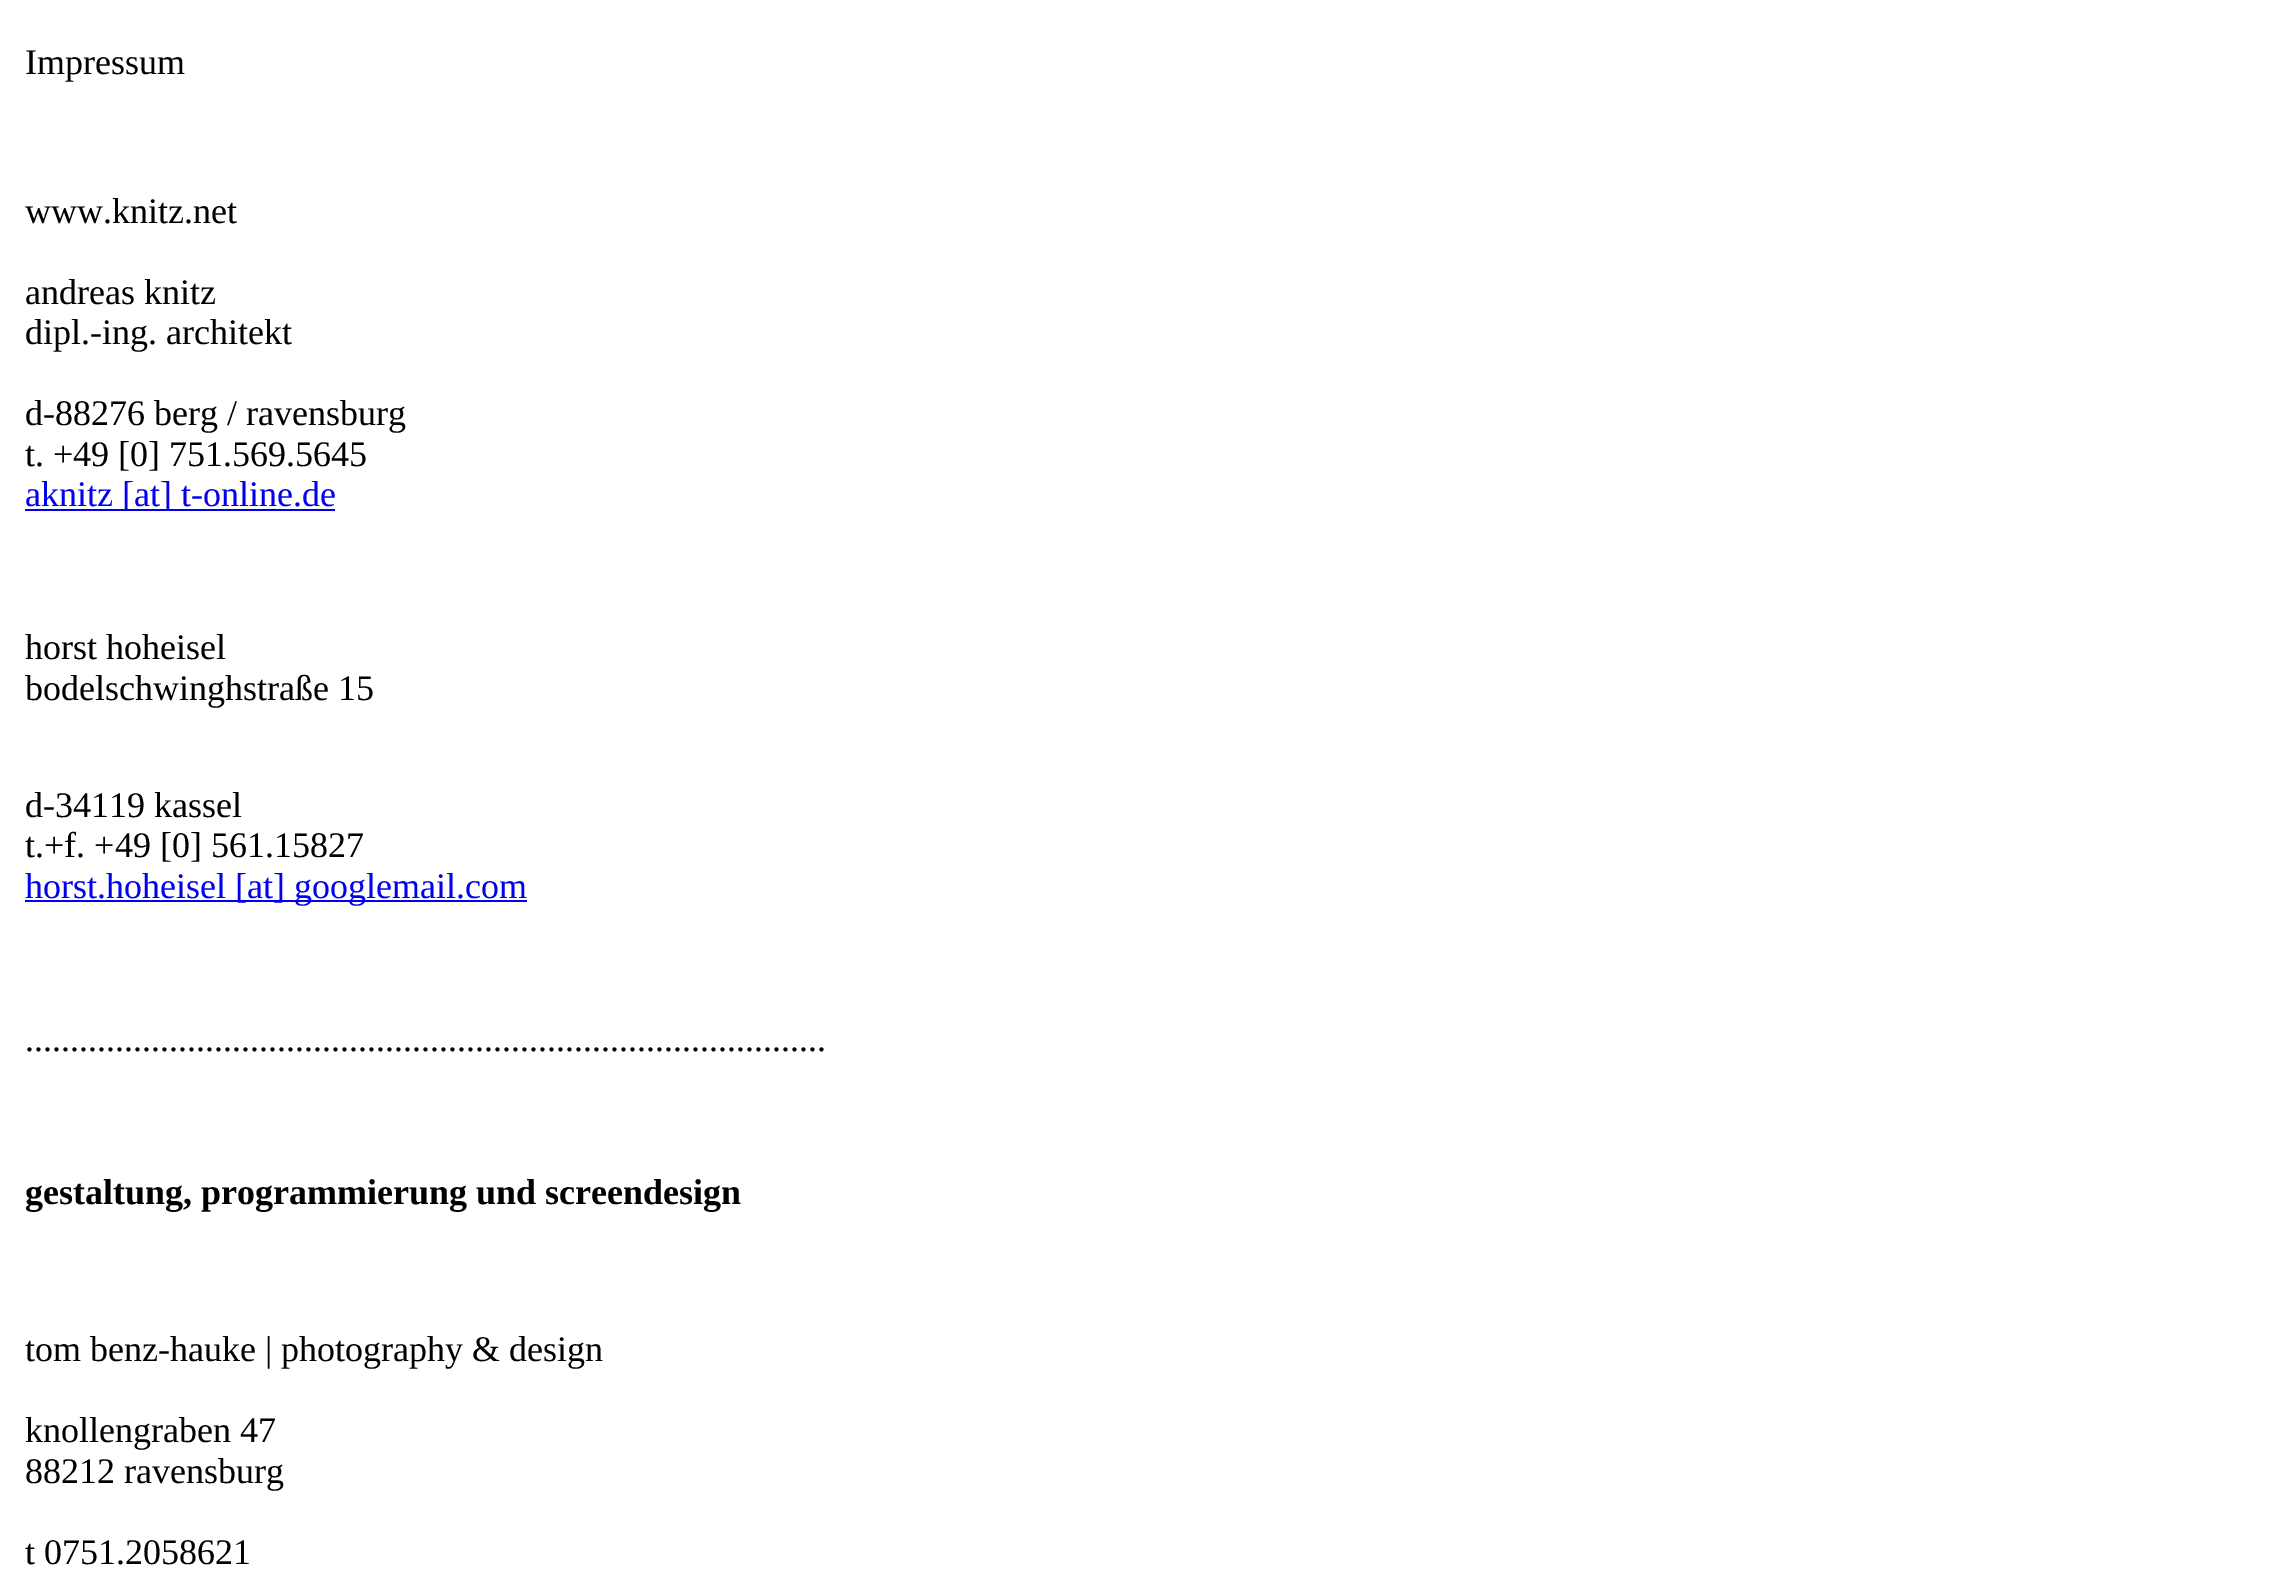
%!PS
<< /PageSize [2293 1572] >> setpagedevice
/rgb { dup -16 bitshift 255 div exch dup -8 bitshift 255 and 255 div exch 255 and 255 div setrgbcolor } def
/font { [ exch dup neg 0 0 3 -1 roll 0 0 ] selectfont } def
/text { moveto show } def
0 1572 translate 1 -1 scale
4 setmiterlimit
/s1 { /LiberationSerif-Regular 36 font 16#000000 rgb } def
/s2 { /LiberationSerif-Regular 36 font 16#0000EE rgb } def
/s3 { /LiberationSerif-Bold 36 font 16#000000 rgb } def
16#FFFFFF rgb
0 0 2293 1572 rectfill
s1
(Impressum) 25 74 text
(www.knitz.net) 25 223 text
(andreas knitz) 25 304 text
(dipl.-ing. architekt) 25 344 text
(d-88276 berg / ravensburg) 25 425 text
(t. +49 [0] 751.569.5645) 25 466 text
16#0000EE rgb
25 509 310 2 rectfill
(aknitz [at] t-online.de) 25 506 text
s1
(horst hoheisel) 25 659 text
(bodelschwinghstraße 15) 25 700 text
(d-34119 kassel) 25 817 text
(t.+f. +49 [0] 561.15827) 25 857 text
16#0000EE rgb
25 900 502 2 rectfill
(horst.hoheisel [at] googlemail.com) 25 898 text
s1
(.........................................................................................) 25 1051 text
s3
(gestaltung, programmierung und screendesign) 25 1204 text
s1
(tom benz-hauke | photography & design) 25 1361 text
(knollengraben 47) 25 1442 text
(88212 ravensburg) 25 1483 text
(t 0751.2058621) 25 1564 text
showpage
